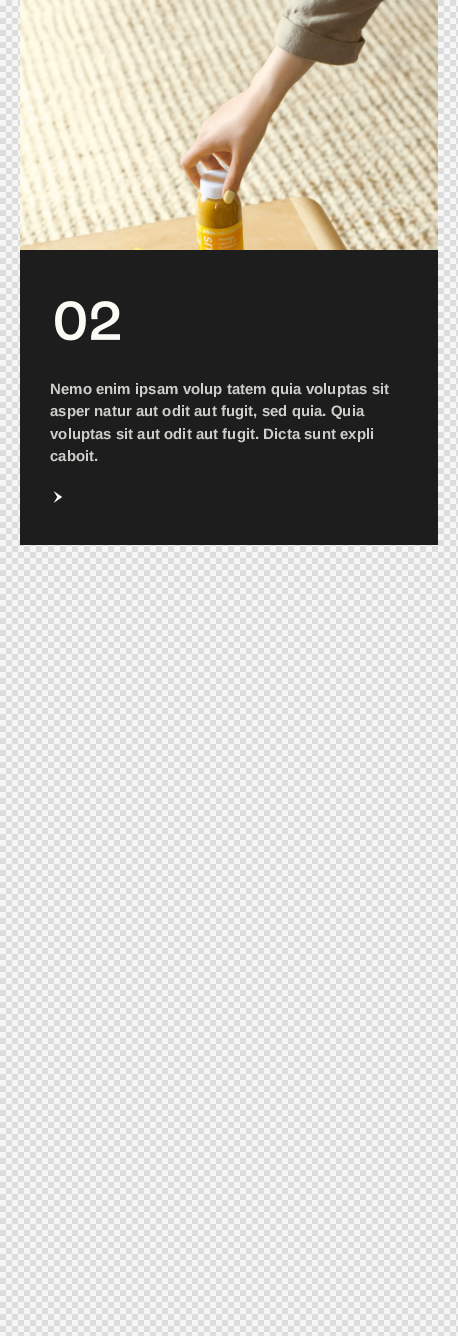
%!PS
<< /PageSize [458 1336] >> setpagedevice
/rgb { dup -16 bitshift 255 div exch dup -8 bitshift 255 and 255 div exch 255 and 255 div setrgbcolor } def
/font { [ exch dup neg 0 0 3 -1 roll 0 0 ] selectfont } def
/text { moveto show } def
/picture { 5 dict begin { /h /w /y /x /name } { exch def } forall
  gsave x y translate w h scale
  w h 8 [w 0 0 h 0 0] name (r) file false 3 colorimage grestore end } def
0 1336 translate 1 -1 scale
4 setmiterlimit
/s1 { /LiberationSans-Bold 15 font 16#CDCFCA rgb } def
16#FFFFFF rgb
0 0 458 1336 rectfill
(pic1.raw) 0 0 458 1336 picture
(pic2.raw) 20 0 418 250 picture
16#1D1D1D rgb
20 250 418 295 rectfill
(pic3.raw) 55 301 65 40 picture
s1
(Nemo enim ipsam volup tatem quia voluptas sit) 50 394 text
(asper natur aut odit aut fugit, sed quia. Quia) 50 416 text
(voluptas sit aut odit aut fugit. Dicta sunt expli) 50 439 text
(caboit.) 50 461 text
16#F9FBF5 rgb
62 497 moveto 54 502.5 lineto 57.5 497 lineto 54 491.5 lineto closepath fill
showpage
